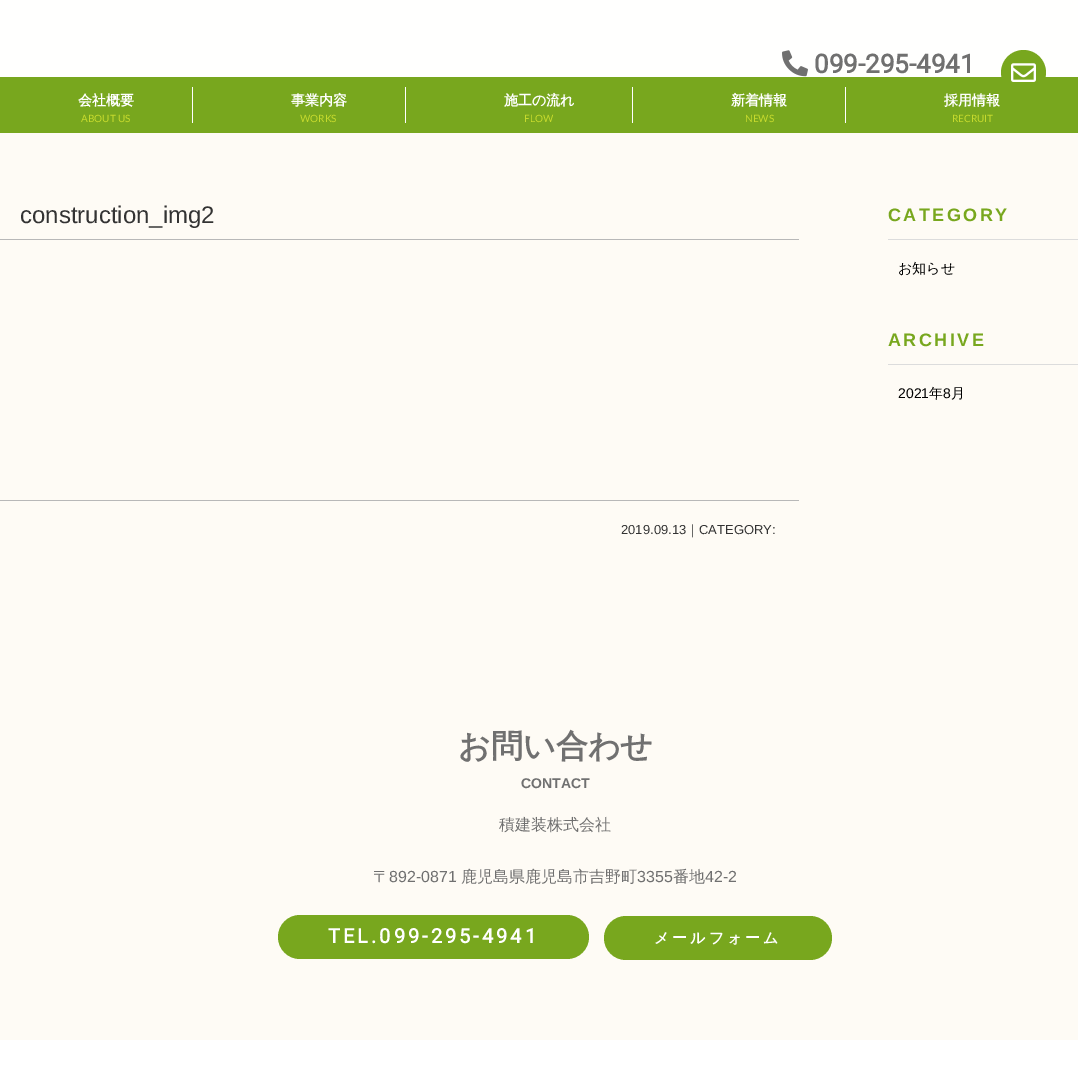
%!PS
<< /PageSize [1078 1085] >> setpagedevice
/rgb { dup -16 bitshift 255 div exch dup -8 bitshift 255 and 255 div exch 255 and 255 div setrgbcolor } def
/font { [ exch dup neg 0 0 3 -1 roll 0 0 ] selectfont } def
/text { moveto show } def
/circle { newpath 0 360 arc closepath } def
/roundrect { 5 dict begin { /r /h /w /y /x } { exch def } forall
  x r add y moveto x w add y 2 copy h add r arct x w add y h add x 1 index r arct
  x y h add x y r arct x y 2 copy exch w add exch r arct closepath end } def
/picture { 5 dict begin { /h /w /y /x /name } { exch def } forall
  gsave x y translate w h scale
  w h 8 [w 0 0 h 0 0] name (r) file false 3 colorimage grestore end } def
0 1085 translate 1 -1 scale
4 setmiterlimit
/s1 { /Roboto-Bold 26 font 16#707070 rgb } def
/s2 { /WenQuanYiZenHei-Bold 14 font 16#FFFFFF rgb } def
/s3 { /Lato-Regular 10 font 16#C6DA2D rgb } def
/s4 { /LiberationSans-Regular 24 font 16#333333 rgb } def
/s5 { /LiberationSans-Regular 13 font 16#333333 rgb } def
/s6 { /WenQuanYiZenHei-Medium 13 font 16#333333 rgb } def
/s7 { /WenQuanYiZenHei-Medium 14 font 16#000000 rgb } def
/s8 { /LiberationSans-Regular 14 font 16#000000 rgb } def
/s9 { /WenQuanYiZenHei-Bold 32 font 16#707070 rgb } def
/s10 { /LiberationSans-Bold 14 font 16#707070 rgb } def
/s11 { /WenQuanYiZenHei-Medium 16 font 16#707070 rgb } def
/s12 { /LiberationSans-Regular 16 font 16#707070 rgb } def
16#FEFBF5 rgb
0 0 1078 1085 rectfill
16#FFFFFE rgb
0 0 1078 77 rectfill
16#78A71E rgb
0 77 1078 56 rectfill
(pic1.raw) 782 50 26 27 picture
s1
(099-295-4941) 814 73 text
16#78A71E rgb
1023.5 72.5 22.5 circle fill
(pic2.raw) 1011 63 25 19 picture
16#FFFFFF rgb
192 87 1 36 rectfill
s2
(会社概要) 78 105 text
s3
(ABOUT US) 81 122 text
16#FFFFFF rgb
405 87 1 36 rectfill
s2
(事業内容) 291 105 text
s3
(WORKS) 300 122 text
16#FFFFFF rgb
632 87 1 36 rectfill
s2
(施工の流れ) 504 105 text
s3
(FLOW) 524 122 text
16#FFFFFF rgb
845 87 1 36 rectfill
s2
(新着情報) 731 105 text
s3
(NEWS) 745 122 text
s2
(採用情報) 944 105 text
s3
(RECRUIT) 952 122 text
16#B8B8B8 rgb
0 239 799 1 rectfill
s4
(construction_img2) 20 223 text
16#B8B8B8 rgb
0 500 799 1 rectfill
s5
(2019.09.13) 621 534 text
s6
(｜) 686 534 text
s5
(CATEGORY:) 699 534 text
16#DCDCDC rgb
888 239 190 1 rectfill
/LiberationSans-Bold 18 font
16#78A71E rgb
888 221 moveto 2.5 0 (CATEGORY) ashow
s7
(お知らせ) 898 273 text
16#DCDCDC rgb
888 364 190 1 rectfill
/LiberationSans-Bold 18 font
16#78A71E rgb
888 346 moveto 2.5 0 (ARCHIVE) ashow
s8
(2021) 898 398 text
s7
(年) 929 398 text
s8
(8) 943 398 text
s7
(月) 951 398 text
s9
(お問い合わせ) 458 757 text
s10
(CONTACT) 521 788 text
s11
(積建装株式会社) 499 830 text
(〒) 373 882 text
s12
(892-0871) 389 882 text
s11
(鹿児島県鹿児島市吉野町) 461 882 text
s12
(3355) 637 882 text
s11
(番地) 673 882 text
s12
(42-2) 705 882 text
16#78A71E rgb
278 915 311 44 22 roundrect fill
/Roboto-Bold 20 font
16#FFFFFF rgb
328 943 moveto 3 0 (TEL.099-295-4941) ashow
16#78A71E rgb
604 916 228 44 22 roundrect fill
/WenQuanYiZenHei-Bold 15 font
16#FFFFFF rgb
654 943 moveto 3 0 (メールフォーム) ashow
0 1040 1078 45 rectfill
showpage
